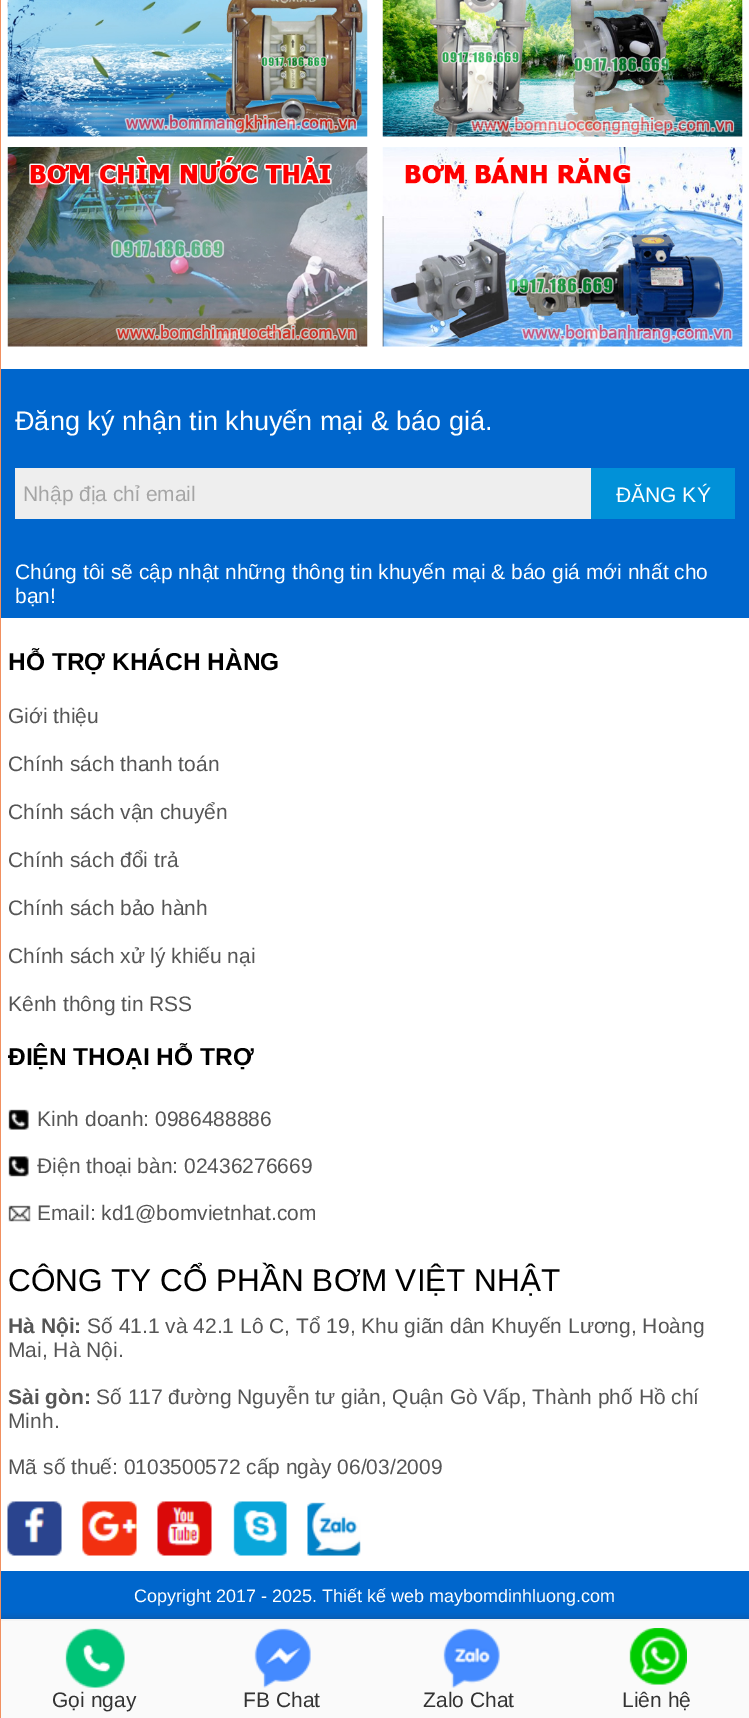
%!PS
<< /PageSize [749 1718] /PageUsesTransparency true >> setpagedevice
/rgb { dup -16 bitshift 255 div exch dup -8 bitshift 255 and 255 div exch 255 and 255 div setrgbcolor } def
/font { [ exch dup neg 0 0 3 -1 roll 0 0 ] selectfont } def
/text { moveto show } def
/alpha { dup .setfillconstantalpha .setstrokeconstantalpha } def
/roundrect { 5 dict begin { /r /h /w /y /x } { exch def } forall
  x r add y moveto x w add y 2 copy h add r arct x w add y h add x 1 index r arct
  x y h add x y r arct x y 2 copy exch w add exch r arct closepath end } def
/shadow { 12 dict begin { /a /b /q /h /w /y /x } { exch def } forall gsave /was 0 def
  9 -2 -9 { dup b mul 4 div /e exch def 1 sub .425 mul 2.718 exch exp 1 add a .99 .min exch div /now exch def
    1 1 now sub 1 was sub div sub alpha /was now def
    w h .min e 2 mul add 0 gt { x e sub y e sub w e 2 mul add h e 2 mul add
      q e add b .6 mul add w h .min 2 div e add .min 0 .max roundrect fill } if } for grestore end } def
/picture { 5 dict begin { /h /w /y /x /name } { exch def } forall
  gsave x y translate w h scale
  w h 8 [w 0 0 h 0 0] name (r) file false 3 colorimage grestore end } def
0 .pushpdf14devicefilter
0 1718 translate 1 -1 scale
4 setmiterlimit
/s1 { /LiberationSans-Regular 27 font 16#FFFFFF rgb } def
/s2 { /LiberationSans-Regular 21 font 16#A5A5A5 rgb } def
/s3 { /LiberationSans-Regular 21 font 16#FFFFFF rgb } def
/s4 { /LiberationSans-Bold 24.5 font 16#000000 rgb } def
/s5 { /LiberationSans-Regular 21 font 16#555555 rgb } def
/s6 { /LiberationSans-Regular 31.5 font 16#000000 rgb } def
/s7 { /LiberationSans-Bold 21 font 16#555555 rgb } def
/s8 { /LiberationSans-Regular 18 font 16#FFFFFF rgb } def
/s9 { /LiberationSans-Regular 21 font 16#333333 rgb } def
16#FFFFFF rgb
0 0 749 1718 rectfill
16#0066CC rgb
1 1571 748 48 rectfill
16#333333 rgb
0 1623 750 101 0 4.5 1 shadow
16#F4F4F4 rgb
0 1619 749 2 rectfill
16#F19060 rgb
0 0 1 1718 rectfill
(pic1.raw) 7 0 361 137 picture
(pic2.raw) 382 0 361 137 picture
(pic3.raw) 7 147 361 200 picture
(pic4.raw) 382 147 361 200 picture
16#0066CC rgb
1 369 748 249 rectfill
s1
(Đăng ký nhận tin khuyến mại & báo giá.) 15 430 text
16#EEEEEE rgb
15 468 576 51 rectfill
s2
(Nhập địa chỉ email) 23 501 text
16#0191D8 rgb
591 468 144 51 rectfill
s3
(ĐĂNG KÝ) 616 502 text
(Chúng tôi sẽ cập nhật những thông tin khuyến mại & báo giá mới nhất cho) 15 579 text
(bạn!) 15 603 text
s4
(HỖ TRỢ KHÁCH HÀNG) 8 670 text
s5
(Giới thiệu) 8 723 text
(Chính sách thanh toán) 8 771 text
(Chính sách vận chuyển) 8 819 text
(Chính sách đổi trả) 8 867 text
(Chính sách bảo hành) 8 915 text
(Chính sách xử lý khiếu nại) 8 963 text
(Kênh thông tin RSS) 8 1011 text
s4
(ĐIỆN THOẠI HỖ TRỢ) 8 1065 text
(pic5.raw) 8 1109 21 21 picture
s5
(Kinh doanh: 0986488886) 37 1126 text
(pic6.raw) 8 1156 21 21 picture
(Điện thoại bàn: 02436276669) 37 1173 text
(pic7.raw) 8 1205 23 17 picture
(Email: kd1@bomvietnhat.com) 37 1220 text
s6
(CÔNG TY CỔ PHẦN BƠM VIỆT NHẬT) 8 1291 text
s7
(Hà Nội:) 8 1333 text
s5
(Số 41.1 và 42.1 Lô C, Tổ 19, Khu giãn dân Khuyến Lương, Hoàng) 87 1333 text
(Mai, Hà Nội.) 8 1357 text
s7
(Sài gòn:) 8 1404 text
s5
(Số 117 đường Nguyễn tư giản, Quận Gò Vấp, Thành phố Hồ chí) 96 1404 text
(Minh.) 8 1428 text
(Mã số thuế: 0103500572 cấp ngày 06/03/2009) 8 1474 text
(pic8.raw) 7 1501 55 55 picture
(pic9.raw) 82 1501 55 55 picture
(pic10.raw) 157 1501 55 55 picture
(pic11.raw) 233 1501 54 55 picture
(pic12.raw) 307 1502 54 54 picture
s8
(Copyright 2017 - 2025. Thiết kế web maybomdinhluong.com) 134 1602 text
16#FAFAFA rgb
1 1621 748 97 rectfill
(pic13.raw) 65 1628 60 60 picture
s9
(Gọi ngay) 52 1707 text
(pic14.raw) 254 1628 57 60 picture
(FB Chat) 243 1707 text
(pic15.raw) 443 1628 57 60 picture
(Zalo Chat) 423 1707 text
(pic16.raw) 629 1628 58 57 picture
(Liên hệ) 622 1707 text
.poppdf14devicefilter showpage
